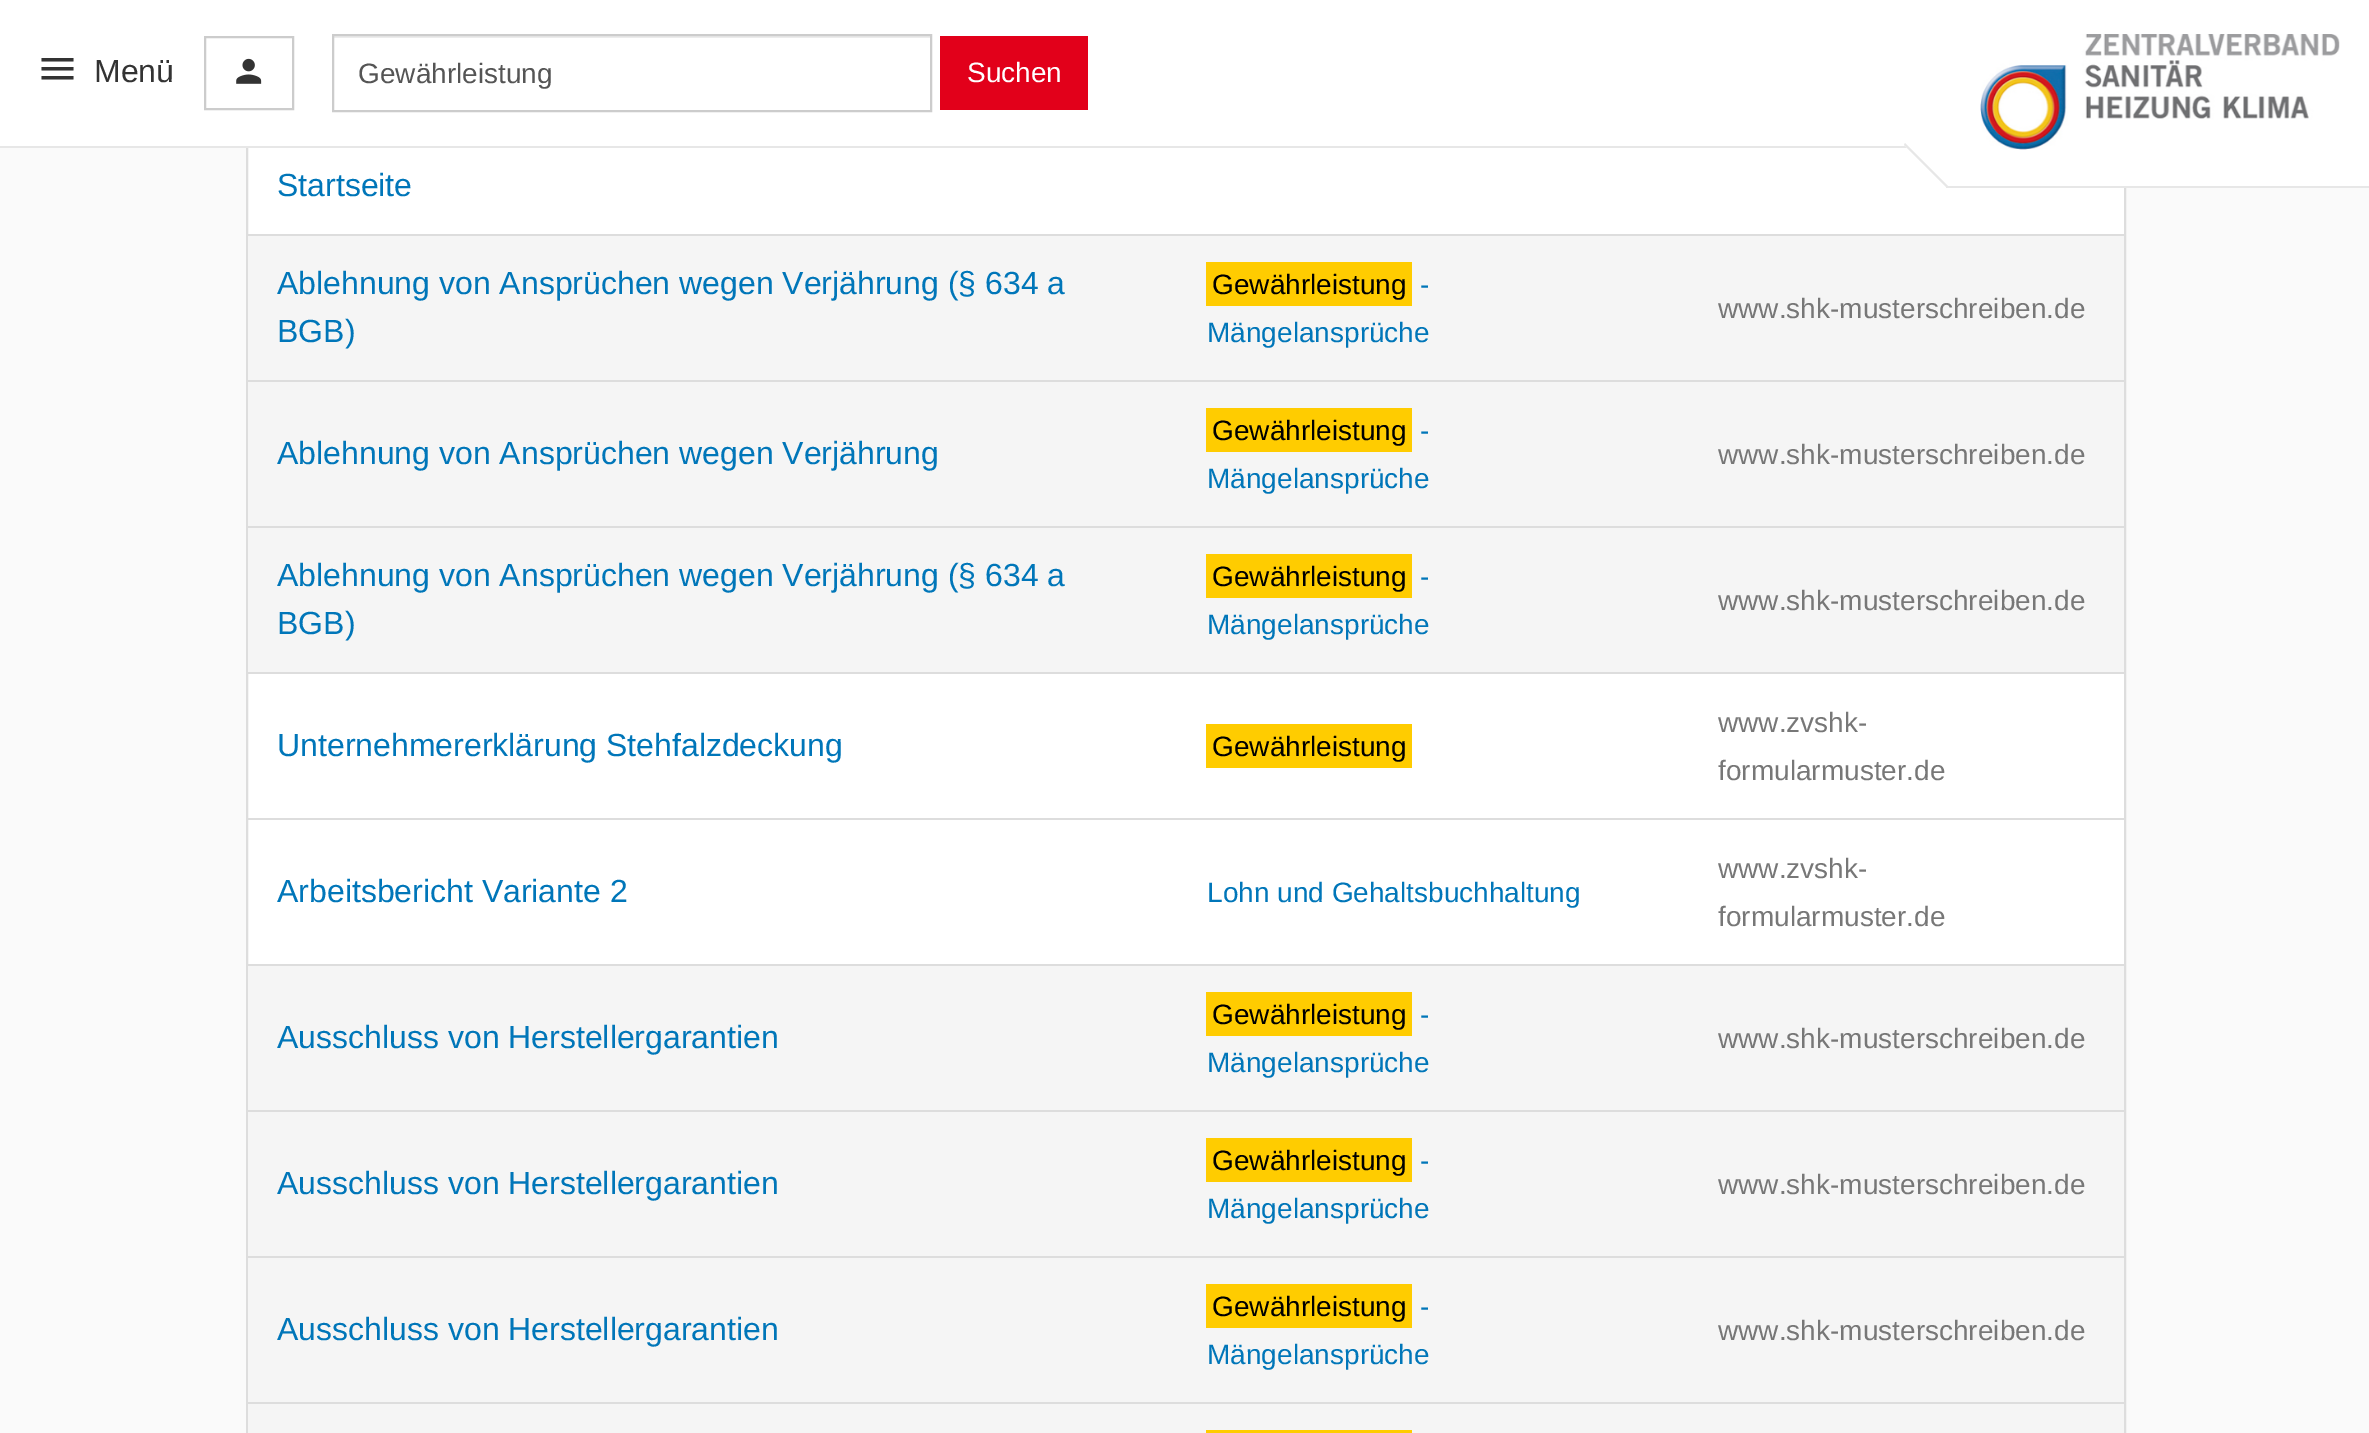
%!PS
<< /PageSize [2369 1433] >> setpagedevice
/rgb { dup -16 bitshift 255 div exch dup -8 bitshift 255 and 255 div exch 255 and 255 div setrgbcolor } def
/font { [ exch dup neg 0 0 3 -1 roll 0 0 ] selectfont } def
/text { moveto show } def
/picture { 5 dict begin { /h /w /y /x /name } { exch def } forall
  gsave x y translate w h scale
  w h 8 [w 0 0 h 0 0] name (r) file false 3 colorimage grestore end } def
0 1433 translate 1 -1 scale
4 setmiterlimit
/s1 { /LiberationSans-Regular 32 font 16#333333 rgb } def
/s2 { /LiberationSans-Regular 28 font 16#555555 rgb } def
/s3 { /LiberationSans-Regular 28 font 16#FFFFFF rgb } def
/s4 { /LiberationSans-Regular 32 font 16#0076B9 rgb } def
/s5 { /LiberationSans-Regular 28 font 16#000000 rgb } def
/s6 { /LiberationSans-Regular 28 font 16#0076B9 rgb } def
/s7 { /LiberationSans-Regular 28 font 16#777777 rgb } def
16#FAFAFA rgb
0 0 2369 1433 rectfill
16#FFFFFF rgb
248 148 1876 816 rectfill
16#DDDDDD rgb
2 setlinewidth
247 -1 1878 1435 rectstroke
16#FFFFFF rgb
0 0 1946 146 rectfill
16#E7E7E7 rgb
0 146 1907 2 rectfill
16#333333 rgb
41.5 58 moveto 73.5 58 lineto 73.5 61.5 lineto 41.5 61.5 lineto closepath 41.5 70.5 moveto 41.5 67 lineto 73.5 67 lineto 73.5 70.5 lineto closepath 41.5 79.5 moveto 41.5 76 lineto 73.5 76 lineto 73.5 79.5 lineto closepath fill
s1
(Menü) 94 82 text
16#CCCCCC rgb
205 37 88 72 rectstroke
(pic1.raw) 236 58 26 26 picture
16#ECECEC rgb
334 36 596 2 rectfill
16#CCCCCC rgb
333 35 598 76 rectstroke
s2
(Gewährleistung) 358 83 text
16#E2001A rgb
940 36 148 74 rectfill
s3
(Suchen) 967 82 text
1946 0 423 186 rectfill
16#E7E7E7 rgb
1946 186 423 2 rectfill
(pic2.raw) 1980 34 360 116 picture
16#FFFFFF rgb
1942 107 moveto 1984 149 lineto 1946 187 lineto 1904 145 lineto closepath fill
16#E7E7E7 rgb
1905 143 moveto 1948 186 lineto 1946 187 lineto 1904 145 lineto closepath fill
s4
(Startseite) 277 196 text
16#F5F5F5 rgb
248 236 1876 144 rectfill
s4
(Ablehnung von Ansprüchen wegen Verjährung \(§ 634 a) 277 294 text
(BGB\)) 277 342 text
16#FFCC00 rgb
1206 262 206 44 rectfill
s5
(Gewährleistung) 1212 294 text
s6
(-) 1420 294 text
(Mängelansprüche) 1207 342 text
16#DDDDDD rgb
246 234 1878 2 rectfill
s7
(www.shk-musterschreiben.de) 1718 318 text
16#F5F5F5 rgb
248 382 1876 144 rectfill
s4
(Ablehnung von Ansprüchen wegen Verjährung) 277 464 text
16#FFCC00 rgb
1206 408 206 44 rectfill
s5
(Gewährleistung) 1212 440 text
s6
(-) 1420 440 text
(Mängelansprüche) 1207 488 text
16#DDDDDD rgb
246 380 1878 2 rectfill
s7
(www.shk-musterschreiben.de) 1718 464 text
16#F5F5F5 rgb
248 528 1876 144 rectfill
s4
(Ablehnung von Ansprüchen wegen Verjährung \(§ 634 a) 277 586 text
(BGB\)) 277 634 text
16#FFCC00 rgb
1206 554 206 44 rectfill
s5
(Gewährleistung) 1212 586 text
s6
(-) 1420 586 text
(Mängelansprüche) 1207 634 text
16#DDDDDD rgb
246 526 1878 2 rectfill
s7
(www.shk-musterschreiben.de) 1718 610 text
s4
(Unternehmererklärung Stehfalzdeckung) 277 756 text
16#FFCC00 rgb
1206 724 206 44 rectfill
s5
(Gewährleistung) 1212 756 text
16#DDDDDD rgb
246 672 1878 2 rectfill
s7
(www.zvshk-) 1718 732 text
(formularmuster.de) 1718 780 text
s4
(Arbeitsbericht Variante 2) 277 902 text
s6
(Lohn und Gehaltsbuchhaltung) 1207 902 text
16#DDDDDD rgb
246 818 1878 2 rectfill
s7
(www.zvshk-) 1718 878 text
(formularmuster.de) 1718 926 text
16#F5F5F5 rgb
248 966 1876 144 rectfill
s4
(Ausschluss von Herstellergarantien) 277 1048 text
16#FFCC00 rgb
1206 992 206 44 rectfill
s5
(Gewährleistung) 1212 1024 text
s6
(-) 1420 1024 text
(Mängelansprüche) 1207 1072 text
16#DDDDDD rgb
246 964 1878 2 rectfill
s7
(www.shk-musterschreiben.de) 1718 1048 text
16#F5F5F5 rgb
248 1112 1876 144 rectfill
s4
(Ausschluss von Herstellergarantien) 277 1194 text
16#FFCC00 rgb
1206 1138 206 44 rectfill
s5
(Gewährleistung) 1212 1170 text
s6
(-) 1420 1170 text
(Mängelansprüche) 1207 1218 text
16#DDDDDD rgb
246 1110 1878 2 rectfill
s7
(www.shk-musterschreiben.de) 1718 1194 text
16#F5F5F5 rgb
248 1258 1876 144 rectfill
s4
(Ausschluss von Herstellergarantien) 277 1340 text
16#FFCC00 rgb
1206 1284 206 44 rectfill
s5
(Gewährleistung) 1212 1316 text
s6
(-) 1420 1316 text
(Mängelansprüche) 1207 1364 text
16#DDDDDD rgb
246 1256 1878 2 rectfill
s7
(www.shk-musterschreiben.de) 1718 1340 text
16#DDDDDD rgb
246 1402 1878 2 rectfill
16#F5F5F5 rgb
248 1404 1876 29 rectfill
16#FFCC00 rgb
1206 1430 206 3 rectfill
showpage
